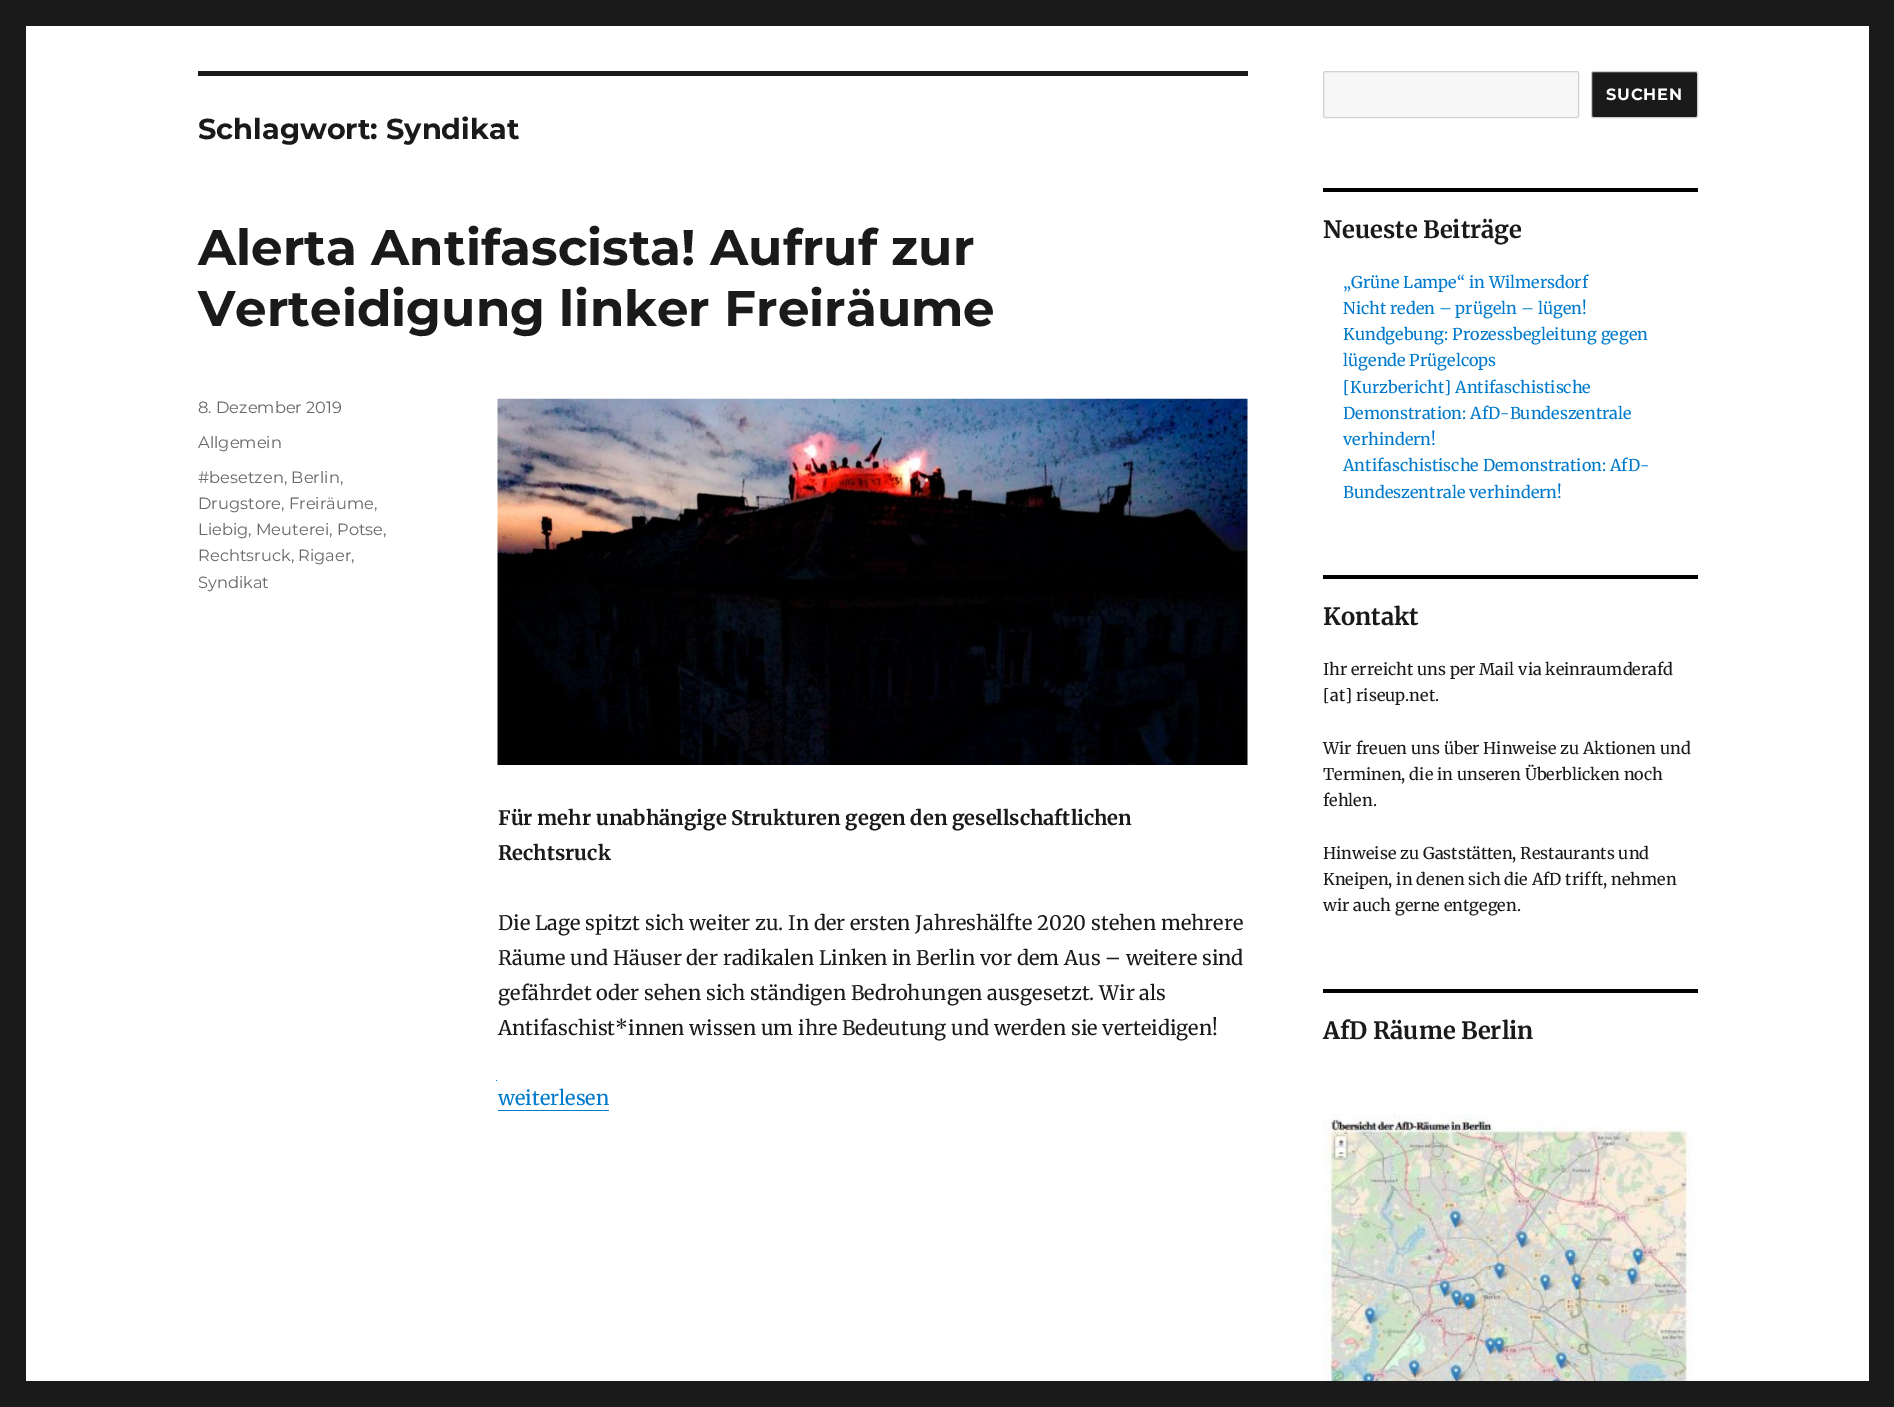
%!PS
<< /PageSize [1894 1407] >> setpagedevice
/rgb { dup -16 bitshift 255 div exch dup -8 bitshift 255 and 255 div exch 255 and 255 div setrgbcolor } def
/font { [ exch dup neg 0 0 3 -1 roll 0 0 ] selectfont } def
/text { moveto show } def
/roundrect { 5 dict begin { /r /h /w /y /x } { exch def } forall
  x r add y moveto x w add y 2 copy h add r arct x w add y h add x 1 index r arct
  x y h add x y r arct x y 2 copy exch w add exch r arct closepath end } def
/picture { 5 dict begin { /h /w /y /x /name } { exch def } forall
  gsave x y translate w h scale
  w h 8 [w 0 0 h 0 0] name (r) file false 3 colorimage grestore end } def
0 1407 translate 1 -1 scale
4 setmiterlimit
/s1 { /Montserrat-Bold 28.75 font 16#1A1A1A rgb } def
/s2 { /Montserrat-Bold 50 font 16#1A1A1A rgb } def
/s3 { /Montserrat-Regular 16.25 font 16#686868 rgb } def
/s4 { /Merriweather-Bold 20 font 16#1A1A1A rgb } def
/s5 { /Merriweather-Regular 20 font 16#1A1A1A rgb } def
/s6 { /Merriweather-Regular 20 font 16#007ACC rgb } def
/s7 { /Merriweather-Bold 23.75 font 16#1A1A1A rgb } def
/s8 { /Merriweather-Regular 16.25 font 16#007ACC rgb } def
/s9 { /Merriweather-Regular 16.25 font 16#1A1A1A rgb } def
16#1A1A1A rgb
0 0 1894 1407 rectfill
16#FFFFFF rgb
26 26 1843 1355 rectfill
16#1A1A1A rgb
198 71 1050 5 rectfill
s1
(Schlagwort: Syndikat) 198 139 text
s2
(Alerta Antifascista! Aufruf zur) 198 265 text
(Verteidigung linker Freiräume) 198 326 text
s3
(8. Dezember 2019) 198 413 text
(Allgemein) 198 448 text
(#besetzen, Berlin,) 198 483 text
(Drugstore, Freiräume,) 198 509 text
(Liebig, Meuterei, Potse,) 198 535 text
(Rechtsruck, Rigaer,) 198 561 text
(Syndikat) 198 588 text
(pic1.raw) 497 398 751 367 picture
s4
(Für mehr unabhängige Strukturen gegen den gesellschaftlichen) 498 825 text
(Rechtsruck) 498 860 text
s5
(Die Lage spitzt sich weiter zu. In der ersten Jahreshälfte 2020 stehen mehrere) 498 930 text
(Räume und Häuser der radikalen Linken in Berlin vor dem Aus – weitere sind) 498 965 text
(gefährdet oder sehen sich ständigen Bedrohungen ausgesetzt. Wir als) 498 1000 text
(Antifaschist*innen wissen um ihre Bedeutung und werden sie verteidigen!) 498 1035 text
s6
(weiterlesen) 498 1105 text
496 1080 1 1 rectfill
498 1110 moveto 498 1111 lineto 609 1111 lineto 609 1086 lineto 609 1110 lineto closepath fill
16#F7F7F7 rgb
1323.5 71.5 255 46 2 roundrect gsave fill grestore
16#D1D1D1 rgb
stroke
16#1A1A1A rgb
1591.5 71.5 106 46 2 roundrect gsave fill grestore
16#CCCCCC rgb
stroke
/Montserrat-Bold 16.25 font
16#FFFFFF rgb
1606 100 moveto 0.75 0 (SUCHEN) ashow
16#000000 rgb
1323 188 375 4 rectfill
s7
(Neueste Beiträge) 1323 238 text
s8
(„Grüne Lampe“ in Wilmersdorf) 1343 288 text
(Nicht reden – prügeln – lügen!) 1343 314 text
(Kundgebung: Prozessbegleitung gegen) 1343 340 text
(lügende Prügelcops) 1343 366 text
([Kurzbericht] Antifaschistische) 1343 393 text
(Demonstration: AfD-Bundeszentrale) 1343 419 text
(verhindern!) 1343 445 text
(Antifaschistische Demonstration: AfD-) 1343 471 text
(Bundeszentrale verhindern!) 1343 498 text
16#000000 rgb
1323 575 375 4 rectfill
s7
(Kontakt) 1323 625 text
s9
(Ihr erreicht uns per Mail via keinraumderafd) 1323 675 text
([at] riseup.net.) 1323 701 text
(Wir freuen uns über Hinweise zu Aktionen und) 1323 754 text
(Terminen, die in unseren Überblicken noch) 1323 780 text
(fehlen.) 1323 806 text
(Hinweise zu Gaststätten, Restaurants und) 1323 859 text
(Kneipen, in denen sich die AfD trifft, nehmen) 1323 885 text
(wir auch gerne entgegen.) 1323 911 text
16#000000 rgb
1323 989 375 4 rectfill
s7
(AfD Räume Berlin) 1323 1039 text
(pic2.raw) 1322 1114 376 267 picture
showpage
